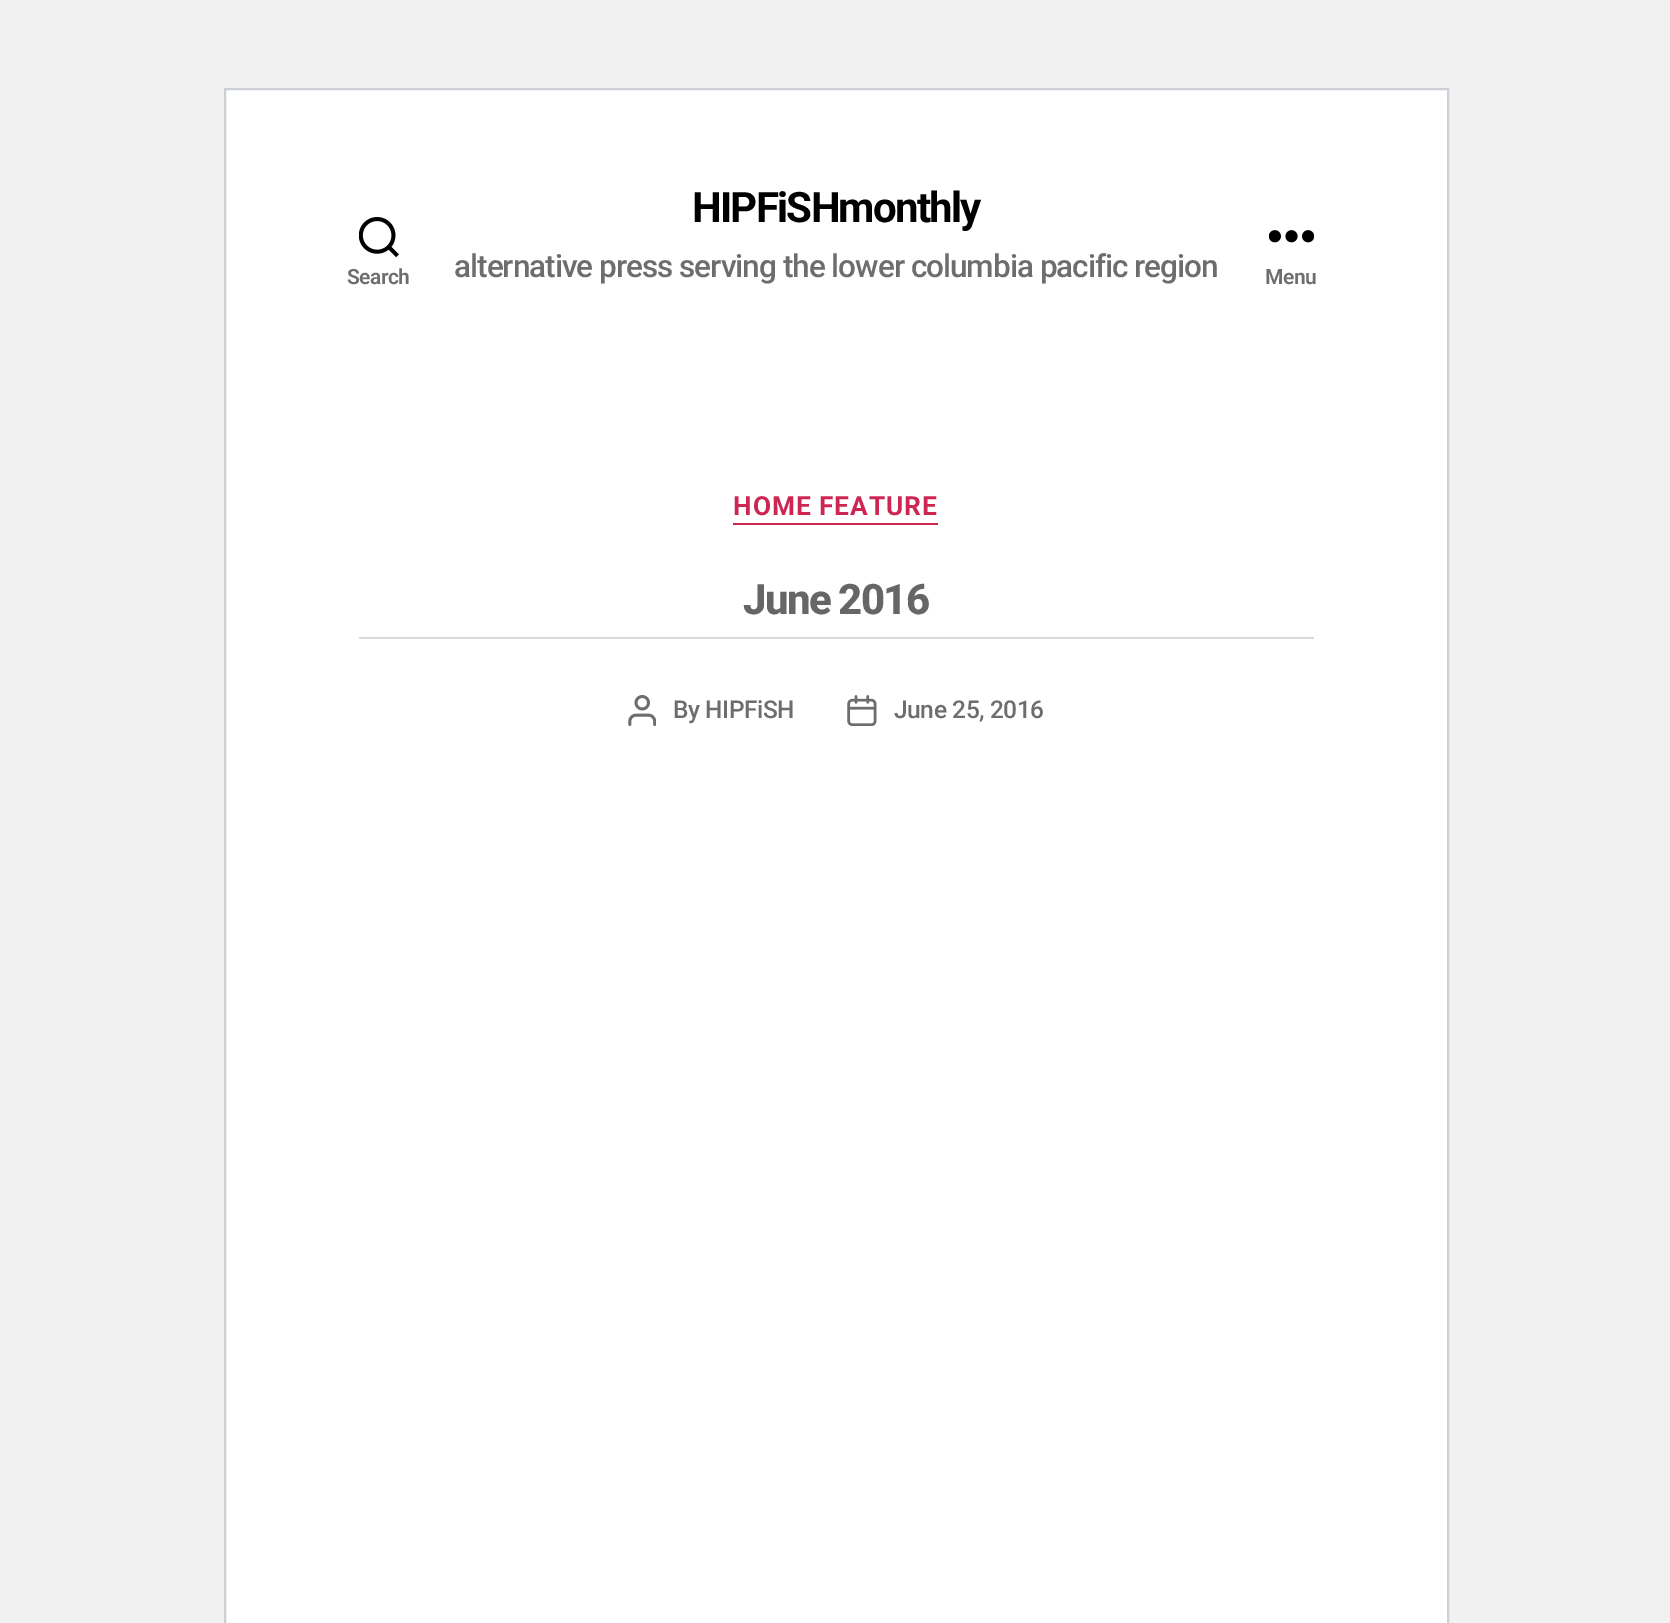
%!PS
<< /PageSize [1670 1623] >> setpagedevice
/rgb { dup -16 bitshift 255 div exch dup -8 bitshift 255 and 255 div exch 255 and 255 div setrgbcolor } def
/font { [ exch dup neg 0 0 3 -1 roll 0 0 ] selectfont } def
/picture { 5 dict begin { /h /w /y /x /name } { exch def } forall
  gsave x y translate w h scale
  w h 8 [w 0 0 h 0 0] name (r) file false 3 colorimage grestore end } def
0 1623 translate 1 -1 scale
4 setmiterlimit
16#F1F1F1 rgb
0 0 1670 1623 rectfill
16#FFFFFF rgb
225 89 moveto 1448 89 lineto 1448 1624 lineto 225 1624 lineto closepath gsave fill grestore
16#CCD0D4 rgb
2 setlinewidth
stroke
(pic1.raw) 359 217 40 41 picture
/Roboto-SemiBold 21 font
16#6D6D6D rgb
347 284 moveto -0.5 0 (Search) ashow
/Roboto-Bold 42 font
16#000000 rgb
692 222 moveto -1.75 0 (HIPFiSHmonthly) ashow
/Roboto-Medium 31.5 font
16#6D6D6D rgb
454 277 moveto -0.98 0 (alternative press serving the lower columbia pacific region) ashow
(pic2.raw) 1269 230 45 13 picture
/Roboto-SemiBold 21 font
1265 284 moveto -0.5 0 (Menu) ashow
16#CD2653 rgb
733 523 205 2 rectfill
/Roboto-Bold 26.25 font
733 515 moveto 1 0 (HOME FEATURE) ashow
16#DADADA rgb
359 637 955 2 rectfill
/Roboto-ExtraBold 42 font
16#666666 rgb
743 614 moveto -1.75 0 (June 2016) ashow
(pic3.raw) 628 695 28 31 picture
/Roboto-Medium 24.5 font
16#6D6D6D rgb
673 718 moveto -0.4 0 (By HIPFiSH) ashow
(pic4.raw) 847 695 30 31 picture
894 718 moveto -0.4 0 (June 25, 2016) ashow
showpage
